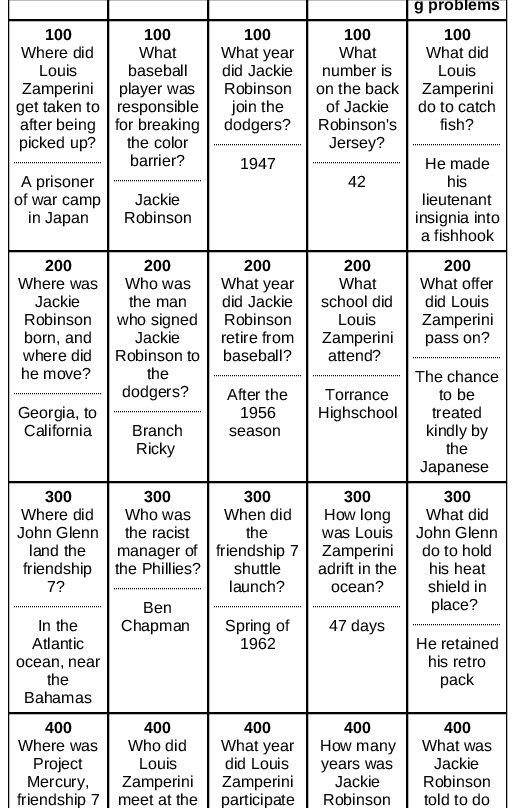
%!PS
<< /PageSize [515 808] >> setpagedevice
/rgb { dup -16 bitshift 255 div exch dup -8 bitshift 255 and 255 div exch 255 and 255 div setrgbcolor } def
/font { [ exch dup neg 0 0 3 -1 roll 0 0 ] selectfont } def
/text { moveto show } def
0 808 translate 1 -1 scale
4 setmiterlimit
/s1 { /LiberationSans-Bold 16 font 16#000000 rgb } def
/s2 { /LiberationSans-Regular 16 font 16#000000 rgb } def
16#FFFFFF rgb
0 0 515 808 rectfill
16#000000 rgb
8.5 -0.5 99 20 rectstroke
108.5 -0.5 99 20 rectstroke
208.5 -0.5 98 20 rectstroke
307.5 -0.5 99 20 rectstroke
407.5 -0.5 99 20 rectstroke
s1
(g problems) 414 10 text
8.5 20.5 99 230 rectstroke
(100) 45 40 text
s2
(Where did) 21 58 text
(Louis) 39 76 text
(Zamperini) 22 94 text
(get taken to) 16 112 text
(after being) 20 130 text
(picked up?) 19 148 text
[1 1] 0 setdash
14 162.5 moveto 102 162.5 lineto stroke
(A prisoner) 21 187 text
(of war camp) 14 205 text
(in Japan) 28 223 text
[] 0 setdash
108.5 20.5 99 230 rectstroke
s1
(100) 144 40 text
s2
(What) 139 58 text
(baseball) 128 76 text
(player was) 119 94 text
(responsible) 117 112 text
(for breaking) 115 130 text
(the color) 127 148 text
(barrier?) 130 166 text
[1 1] 0 setdash
114 180.5 moveto 202 180.5 lineto stroke
(Jackie) 135 205 text
(Robinson) 124 223 text
[] 0 setdash
208.5 20.5 98 230 rectstroke
s1
(100) 244 40 text
s2
(What year) 221 58 text
(did Jackie) 222 76 text
(Robinson) 224 94 text
(join the) 232 112 text
(dodgers?) 224 130 text
[1 1] 0 setdash
214 144.5 moveto 301 144.5 lineto stroke
(1947) 240 169 text
[] 0 setdash
307.5 20.5 99 230 rectstroke
s1
(100) 344 40 text
s2
(What) 339 58 text
(number is) 322 76 text
(on the back) 316 94 text
(of Jackie) 326 112 text
(Robinson's) 318 130 text
(Jersey?) 329 148 text
[1 1] 0 setdash
313 162.5 moveto 401 162.5 lineto stroke
(42) 348 187 text
[] 0 setdash
407.5 20.5 99 230 rectstroke
s1
(100) 444 40 text
s2
(What did) 426 58 text
(Louis) 438 76 text
(Zamperini) 422 94 text
(do to catch) 418 112 text
(fish?) 440 130 text
[1 1] 0 setdash
413 144.5 moveto 501 144.5 lineto stroke
(He made) 425 169 text
(his) 447 187 text
(lieutenant) 422 205 text
(insignia into) 415 223 text
(a fishhook) 421 241 text
[] 0 setdash
8.5 251.5 99 230 rectstroke
s1
(200) 45 271 text
s2
(Where was) 18 289 text
(Jackie) 35 307 text
(Robinson) 24 325 text
(born, and) 24 343 text
(where did) 23 361 text
(he move?) 21 379 text
[1 1] 0 setdash
14 393.5 moveto 102 393.5 lineto stroke
(Georgia, to) 18 418 text
(California) 24 436 text
[] 0 setdash
108.5 251.5 99 230 rectstroke
s1
(200) 144 271 text
s2
(Who was) 125 289 text
(the man) 129 307 text
(who signed) 117 325 text
(Jackie) 135 343 text
(Robinson to) 115 361 text
(the) 147 379 text
(dodgers?) 122 397 text
[1 1] 0 setdash
114 411.5 moveto 202 411.5 lineto stroke
(Branch) 132 436 text
(Ricky) 136 454 text
[] 0 setdash
208.5 251.5 98 230 rectstroke
s1
(200) 244 271 text
s2
(What year) 221 289 text
(did Jackie) 222 307 text
(Robinson) 224 325 text
(retire from) 221 343 text
(baseball?) 223 361 text
[1 1] 0 setdash
214 375.5 moveto 301 375.5 lineto stroke
(After the) 227 400 text
(1956) 240 418 text
(season) 229 436 text
[] 0 setdash
307.5 251.5 99 230 rectstroke
s1
(200) 344 271 text
s2
(What) 339 289 text
(school did) 321 307 text
(Louis) 338 325 text
(Zamperini) 322 343 text
(attend?) 328 361 text
[1 1] 0 setdash
313 375.5 moveto 401 375.5 lineto stroke
(Torrance) 325 400 text
(Highschool) 318 418 text
[] 0 setdash
407.5 251.5 99 230 rectstroke
s1
(200) 444 271 text
s2
(What offer) 420 289 text
(did Louis) 425 307 text
(Zamperini) 422 325 text
(pass on?) 425 343 text
[1 1] 0 setdash
413 357.5 moveto 501 357.5 lineto stroke
(The chance) 415 382 text
(to be) 439 400 text
(treated) 432 418 text
(kindly by) 426 436 text
(the) 446 454 text
(Japanese) 420 472 text
[] 0 setdash
8.5 482.5 99 230 rectstroke
s1
(300) 45 502 text
s2
(Where did) 21 520 text
(John Glenn) 17 538 text
(land the) 29 556 text
(friendship) 23 574 text
(7?) 47 592 text
[1 1] 0 setdash
14 606.5 moveto 102 606.5 lineto stroke
(In the) 38 631 text
(Atlantic) 32 649 text
(ocean, near) 16 667 text
(the) 47 685 text
(Bahamas) 24 703 text
[] 0 setdash
108.5 482.5 99 230 rectstroke
s1
(300) 144 502 text
s2
(Who was) 125 520 text
(the racist) 125 538 text
(manager of) 117 556 text
(the Phillies?) 115 574 text
[1 1] 0 setdash
114 588.5 moveto 202 588.5 lineto stroke
(Ben) 143 613 text
(Chapman) 121 631 text
[] 0 setdash
208.5 482.5 98 230 rectstroke
s1
(300) 244 502 text
s2
(When did) 224 520 text
(the) 246 538 text
(friendship 7) 216 556 text
(shuttle) 234 574 text
(launch?) 229 592 text
[1 1] 0 setdash
214 606.5 moveto 301 606.5 lineto stroke
(Spring of) 225 631 text
(1962) 240 649 text
[] 0 setdash
307.5 482.5 99 230 rectstroke
s1
(300) 344 502 text
s2
(How long) 324 520 text
(was Louis) 322 538 text
(Zamperini) 322 556 text
(adrift in the) 318 574 text
(ocean?) 331 592 text
[1 1] 0 setdash
313 606.5 moveto 401 606.5 lineto stroke
(47 days) 329 631 text
[] 0 setdash
407.5 482.5 99 230 rectstroke
s1
(300) 444 502 text
s2
(What did) 426 520 text
(John Glenn) 416 538 text
(do to hold) 422 556 text
(his heat) 429 574 text
(shield in) 428 592 text
(place?) 431 610 text
[1 1] 0 setdash
413 624.5 moveto 501 624.5 lineto stroke
(He retained) 416 649 text
(his retro) 428 667 text
(pack) 440 685 text
[] 0 setdash
8.5 713.5 99 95 rectstroke
s1
(400) 45 733 text
s2
(Where was) 18 751 text
(Project) 33 769 text
(Mercury,) 27 787 text
(friendship 7) 17 805 text
108.5 713.5 99 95 rectstroke
s1
(400) 144 733 text
s2
(Who did) 128 751 text
(Louis) 139 769 text
(Zamperini) 122 787 text
(meet at the) 118 805 text
208.5 713.5 98 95 rectstroke
s1
(400) 244 733 text
s2
(What year) 221 751 text
(did Louis) 225 769 text
(Zamperini) 222 787 text
(participate) 221 805 text
307.5 713.5 99 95 rectstroke
s1
(400) 344 733 text
s2
(How many) 320 751 text
(years was) 321 769 text
(Jackie) 335 787 text
(Robinson) 323 805 text
407.5 713.5 99 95 rectstroke
s1
(400) 444 733 text
s2
(What was) 422 751 text
(Jackie) 434 769 text
(Robinson) 423 787 text
(told to do) 424 805 text
showpage
